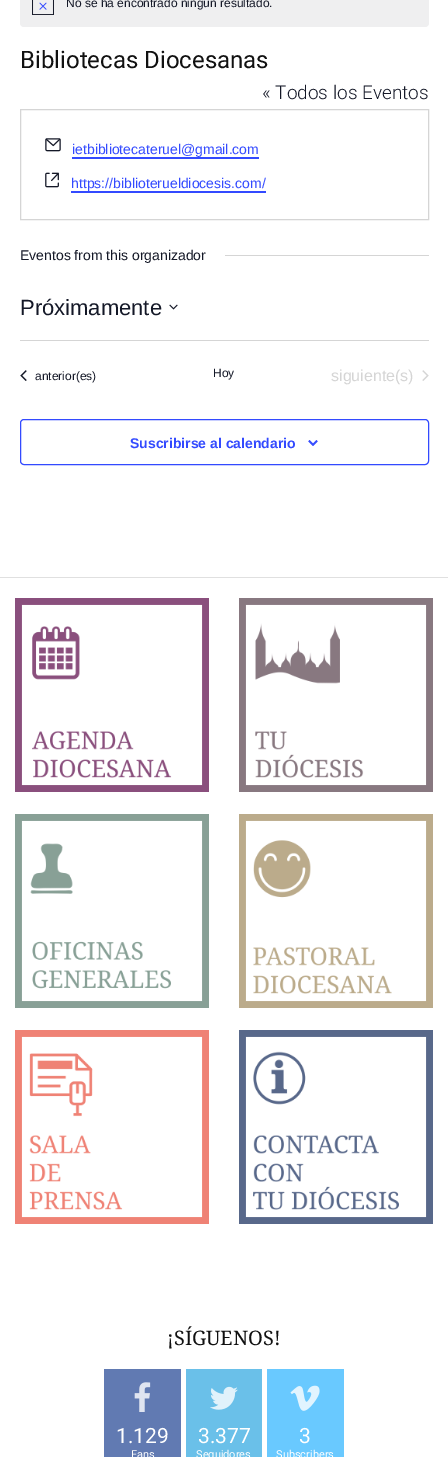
%!PS
<< /PageSize [448 1457] >> setpagedevice
/rgb { dup -16 bitshift 255 div exch dup -8 bitshift 255 and 255 div exch 255 and 255 div setrgbcolor } def
/font { [ exch dup neg 0 0 3 -1 roll 0 0 ] selectfont } def
/text { moveto show } def
/roundrect { 5 dict begin { /r /h /w /y /x } { exch def } forall
  x r add y moveto x w add y 2 copy h add r arct x w add y h add x 1 index r arct
  x y h add x y r arct x y 2 copy exch w add exch r arct closepath end } def
/picture { 5 dict begin { /h /w /y /x /name } { exch def } forall
  gsave x y translate w h scale
  w h 8 [w 0 0 h 0 0] name (r) file false 3 colorimage grestore end } def
0 1457 translate 1 -1 scale
4 setmiterlimit
/s1 { /LiberationSans-Regular 12 font 16#141827 rgb } def
/s2 { /Roboto-Regular 24 font 16#111111 rgb } def
/s3 { /Roboto-Light 19 font 16#141827 rgb } def
/s4 { /LiberationSans-Regular 14 font 16#334AFF rgb } def
/s5 { /LiberationSans-Regular 14 font 16#141827 rgb } def
/s6 { /LiberationSans-Regular 22 font 16#141827 rgb } def
/s7 { /LiberationSans-Regular 16 font 16#D5D5D5 rgb } def
/s8 { /LiberationSans-Bold 14 font 16#334AFF rgb } def
/s9 { /DroidSerif-Regular 20 font 16#111111 rgb } def
/s10 { /Roboto-Regular 21 font 16#FFFFFF rgb } def
/s11 { /Roboto-Regular 11 font 16#FFFFFF rgb } def
16#FFFFFF rgb
0 0 448 1457 rectfill
16#EFEFF0 rgb
20 -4 409 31 4 roundrect fill
(pic1.raw) 32 0 22 15 picture
s1
(No se ha encontrado ningún resultado.) 66 7 text
s2
(Bibliotecas Diocesanas) 20 68 text
s3
(« Todos los Eventos) 262 99 text
16#D5D5D5 rgb
20.5 109.5 408 110 rectstroke
(pic2.raw) 45 138 16 14 picture
s4
(ietbibliotecateruel@gmail.com) 72 154 text
72 157 187 2 rectfill
(pic3.raw) 45 172 14 16 picture
(https://biblioterueldiocesis.com/) 71 188 text
71 191 195 2 rectfill
s5
(Eventos from this organizador) 20 260 text
16#D5D5D5 rgb
225 255 204 1 rectfill
s6
(Próximamente) 20 315 text
(pic4.raw) 169 304 9 6 picture
16#D5D5D5 rgb
20 340 409 1 rectfill
(pic5.raw) 20 370 7 11 picture
s1
(anterior\(es\)) 35 380 text
(Hoy) 213 377 text
s7
(siguiente\(s\)) 331 381 text
(pic6.raw) 422 370 7 11 picture
16#334AFF rgb
20.5 419.5 408 45 3.5 roundrect stroke
s8
(Suscribirse al calendario) 130 448 text
(pic7.raw) 308 440 10 6 picture
16#E0E0E0 rgb
0 577 448 1 rectfill
(pic8.raw) 15 598 194 194 picture
(pic9.raw) 239 598 194 194 picture
(pic10.raw) 15 814 194 194 picture
(pic11.raw) 239 814 194 194 picture
(pic12.raw) 15 1030 194 194 picture
(pic13.raw) 239 1030 194 194 picture
s9
(¡SÍGUENOS!) 167 1345 text
16#617AB2 rgb
104 1369 77 88 rectfill
(pic14.raw) 134 1382 17 30 picture
s10
(1.129) 116 1443 text
s11
(Fans) 131 1458 text
16#6AC0E9 rgb
186 1369 76 88 rectfill
(pic15.raw) 210 1386 28 24 picture
s10
(3.377) 198 1443 text
s11
(Seguidores) 196 1458 text
16#69C9FF rgb
267 1369 77 88 rectfill
(pic16.raw) 290 1385 30 26 picture
s10
(3) 299 1443 text
s11
(Subscribers) 276 1458 text
showpage
